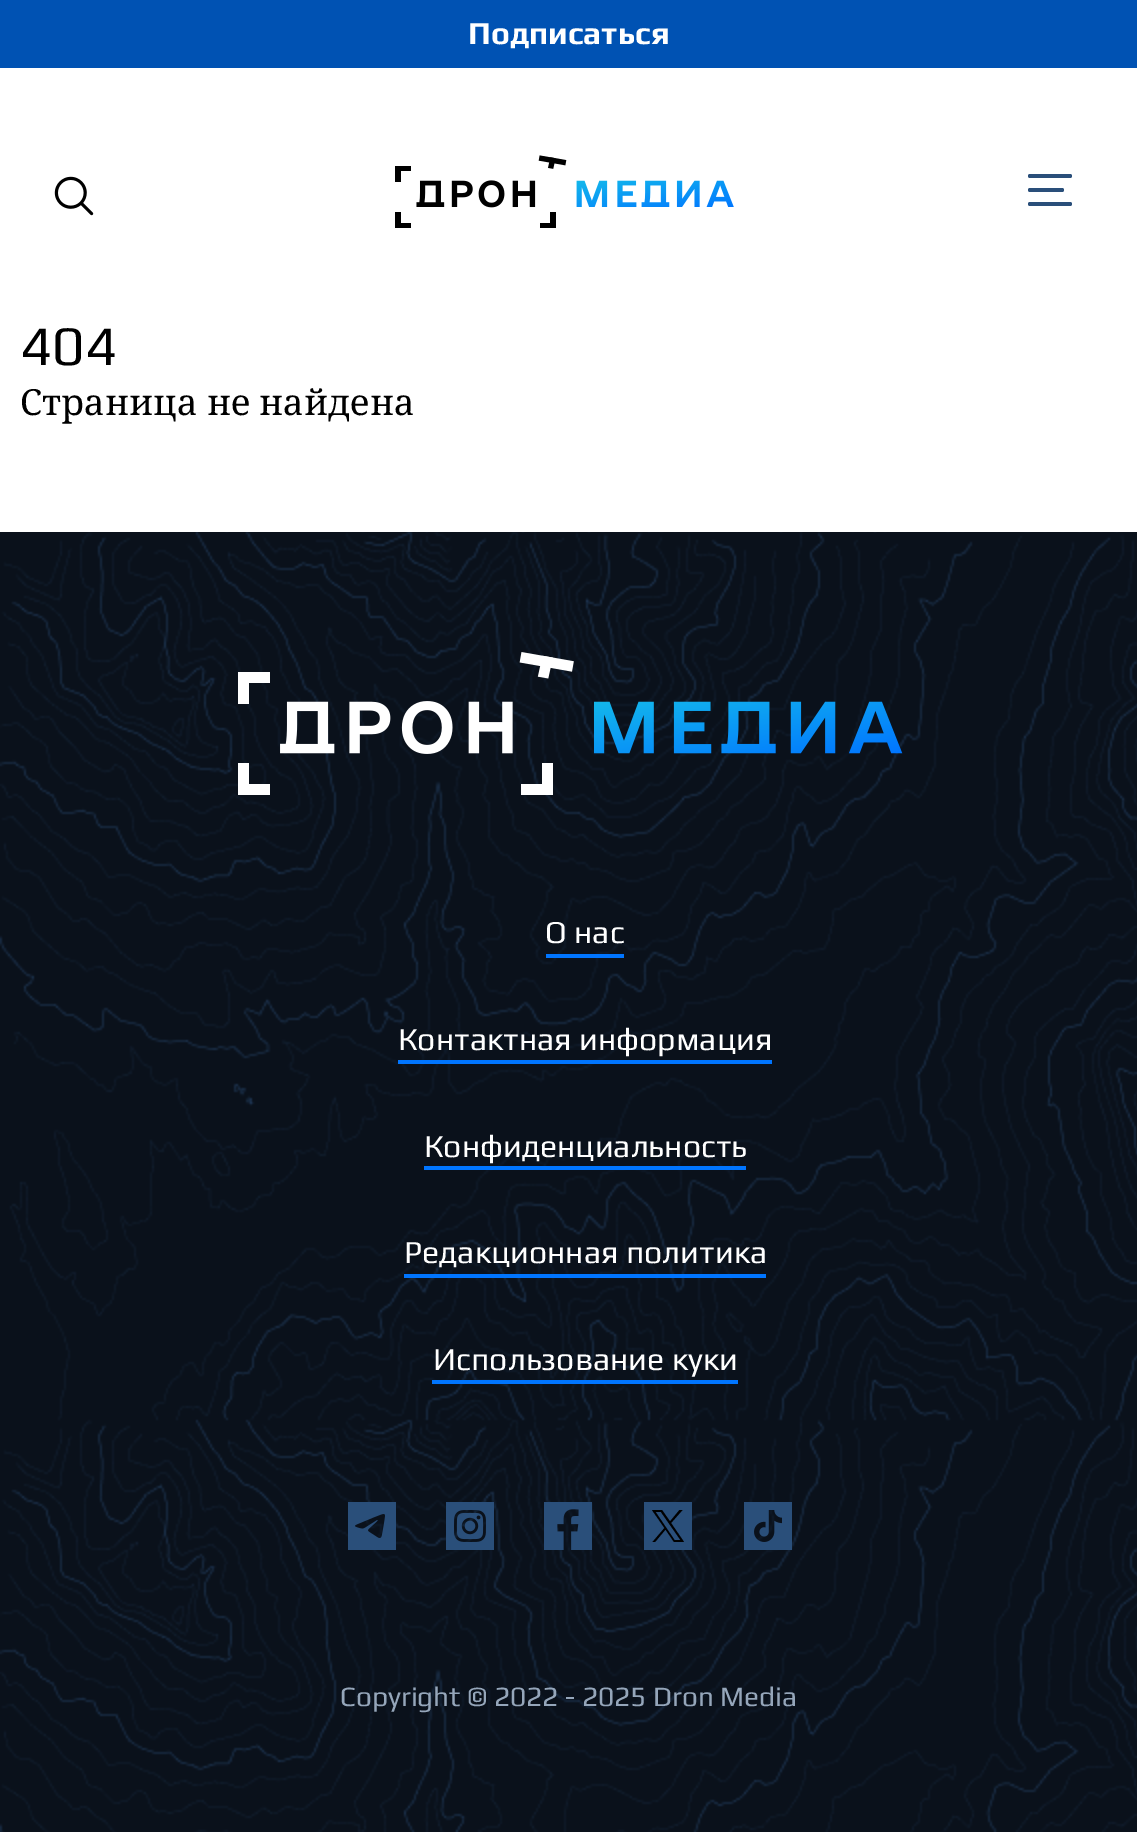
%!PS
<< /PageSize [1137 1832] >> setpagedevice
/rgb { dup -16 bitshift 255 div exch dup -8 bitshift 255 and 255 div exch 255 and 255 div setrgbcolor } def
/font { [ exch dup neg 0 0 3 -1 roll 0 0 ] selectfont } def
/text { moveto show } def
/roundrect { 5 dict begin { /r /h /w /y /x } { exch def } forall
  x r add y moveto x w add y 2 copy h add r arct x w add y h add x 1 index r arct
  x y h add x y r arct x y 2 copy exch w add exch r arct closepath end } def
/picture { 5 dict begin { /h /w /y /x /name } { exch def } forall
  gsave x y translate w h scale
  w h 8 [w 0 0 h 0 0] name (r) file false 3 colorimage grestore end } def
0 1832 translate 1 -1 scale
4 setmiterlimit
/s1 { /Play-Bold 32 font 16#FFFFFF rgb } def
/s2 { /Play-Regular 56 font 16#000000 rgb } def
/s3 { /NotoSerif-Regular 36 font 16#000000 rgb } def
/s4 { /Play-Regular 32 font 16#FFFFFF rgb } def
/s5 { /Play-Regular 28 font 16#95A6BA rgb } def
16#FFFFFF rgb
0 0 1137 1832 rectfill
16#0052B3 rgb
0 0 1137 68 rectfill
s1
(Подписаться) 468 44 text
16#2A4F7A rgb
1028 174 44 4 2 roundrect fill
1028 188 36 4 2 roundrect fill
1028 202 44 4 2 roundrect fill
(pic1.raw) 54 176 40 40 picture
(pic2.raw) 395 155 339 73 picture
s2
(404) 20 365 text
s3
(Страница не найдена) 20 415 text
(pic3.raw) 0 532 1137 1300 picture
(pic4.raw) 238 652 665 143 picture
s4
(О нас) 545 943 text
16#0075FF rgb
546 954 78 4 rectfill
s4
(Контактная информация) 398 1050 text
16#0075FF rgb
398 1060 374 4 rectfill
s4
(Конфиденциальность) 424 1157 text
16#0075FF rgb
424 1166 322 4 rectfill
s4
(Редакционная политика) 404 1263 text
16#0075FF rgb
404 1274 362 4 rectfill
s4
(Использование куки) 433 1370 text
16#0075FF rgb
432 1380 306 4 rectfill
(pic5.raw) 348 1502 48 48 picture
(pic6.raw) 446 1502 48 48 picture
(pic7.raw) 544 1502 48 48 picture
16#2A4F7A rgb
644 1502 48 48 rectfill
16#000000 rgb
652 1510 moveto 664.5 1528 lineto 652.5 1542 lineto 655 1542 lineto 665.5 1529.5 lineto 674 1542 lineto 684 1542 lineto 671 1523 lineto 682.5 1510 lineto 679.5 1510 lineto 670 1521.5 lineto 662 1510 lineto closepath 655.5 1512 moveto 661 1512 lineto 680.5 1540 lineto 674.5 1540 lineto closepath fill
(pic8.raw) 744 1502 48 48 picture
s5
(Copyright © 2022 - 2025 Dron Media) 340 1706 text
showpage
